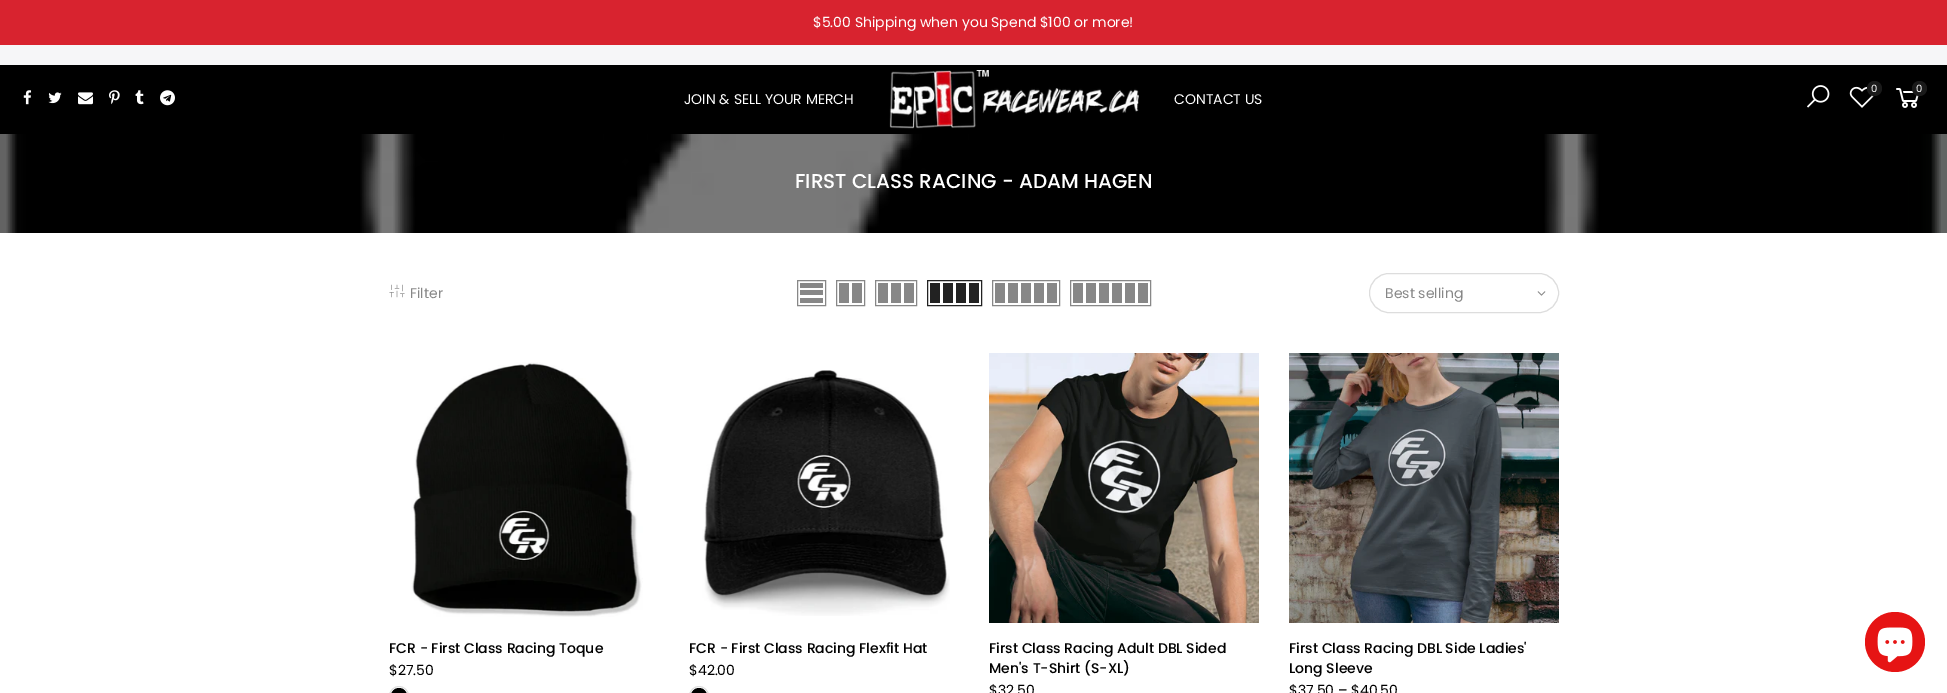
%!PS
<< /PageSize [1947 693] /PageUsesTransparency true >> setpagedevice
/rgb { dup -16 bitshift 255 div exch dup -8 bitshift 255 and 255 div exch 255 and 255 div setrgbcolor } def
/font { [ exch dup neg 0 0 3 -1 roll 0 0 ] selectfont } def
/text { moveto show } def
/alpha { dup .setfillconstantalpha .setstrokeconstantalpha } def
/circle { newpath 0 360 arc closepath } def
/roundrect { 5 dict begin { /r /h /w /y /x } { exch def } forall
  x r add y moveto x w add y 2 copy h add r arct x w add y h add x 1 index r arct
  x y h add x y r arct x y 2 copy exch w add exch r arct closepath end } def
/shadow { 12 dict begin { /a /b /q /h /w /y /x } { exch def } forall gsave /was 0 def
  9 -2 -9 { dup b mul 4 div /e exch def 1 sub .425 mul 2.718 exch exp 1 add a .99 .min exch div /now exch def
    1 1 now sub 1 was sub div sub alpha /was now def
    w h .min e 2 mul add 0 gt { x e sub y e sub w e 2 mul add h e 2 mul add
      q e add b .6 mul add w h .min 2 div e add .min 0 .max roundrect fill } if } for grestore end } def
/picture { 5 dict begin { /h /w /y /x /name } { exch def } forall
  gsave x y translate w h scale
  w h 8 [w 0 0 h 0 0] name (r) file false 3 colorimage grestore end } def
0 .pushpdf14devicefilter
0 693 translate 1 -1 scale
4 setmiterlimit
/s1 { /Poppins-Regular 14 font 16#FFFFFF rgb } def
/s2 { /Poppins-Regular 10 font 16#FFFFFF rgb } def
/s3 { /Poppins-Medium 20 font 16#FFFFFF rgb } def
/s4 { /Poppins-Regular 14 font 16#878787 rgb } def
/s5 { /Poppins-Medium 14 font 16#000000 rgb } def
/s6 { /Poppins-Regular 14 font 16#000000 rgb } def
16#FFFFFF rgb
0 0 1947 693 rectfill
16#D8232F rgb
0 0 1947 45 rectfill
s1
($5.00 Shipping when you Spend $100 or more!) 813 27 text
16#F6F6F8 rgb
0 45 1947 20 rectfill
16#000000 rgb
0 65 1947 69 rectfill
(pic1.raw) 1807 85 23 23 picture
(pic2.raw) 1849 86 25 22 picture
1868 82 15 15 7.5 1.5 0.3 shadow
16#1A1A1A rgb
1874.5 88.5 7.5 circle fill
s2
(0) 1871 92 text
(pic3.raw) 1896 88 23 20 picture
16#000000 rgb
1913 82 15 15 7.5 1.5 0.3 shadow
16#1A1A1A rgb
1919.5 88.5 7.5 circle fill
s2
(0) 1916 92 text
(pic4.raw) 23 90 9 15 picture
(pic5.raw) 48 92 14 12 picture
(pic6.raw) 78 92 15 13 picture
(pic7.raw) 109 90 11 15 picture
(pic8.raw) 135 90 9 15 picture
(pic9.raw) 160 90 15 16 picture
s1
(JOIN & SELL YOUR MERCH) 684 104 text
(pic10.raw) 889 70 250 59 picture
(CONTACT US) 1174 104 text
(pic11.raw) 0 134 1947 99 picture
s3
(FIRST CLASS RACING - ADAM HAGEN) 795 188 text
(pic12.raw) 389 284 16 14 picture
s4
(Filter) 410 298 text
797.5 280.5 28 25 rectstroke
800 298 23 5 rectfill
800 290 23 5 rectfill
800 283 23 5 rectfill
836.5 280.5 28 25 rectstroke
852 283 10 20 rectfill
839 283 10 20 rectfill
875.5 280.5 41 25 rectstroke
904 283 10 20 rectfill
891 283 10 20 rectfill
878 283 10 20 rectfill
16#222222 rgb
927.5 280.5 54 25 rectstroke
969 283 10 20 rectfill
956 283 10 20 rectfill
943 283 10 20 rectfill
930 283 10 20 rectfill
16#878787 rgb
992.5 280.5 67 25 rectstroke
1047 283 10 20 rectfill
1034 283 10 20 rectfill
1021 283 10 20 rectfill
1008 283 10 20 rectfill
995 283 10 20 rectfill
1070.5 280.5 80 25 rectstroke
1138 283 10 20 rectfill
1125 283 10 20 rectfill
1112 283 10 20 rectfill
1099 283 10 20 rectfill
1086 283 10 20 rectfill
1073 283 10 20 rectfill
16#DDDDDD rgb
1369.5 273.5 189 39 19.5 roundrect stroke
s4
(Best selling) 1385 298 text
(pic13.raw) 1537 291 9 5 picture
(pic14.raw) 411 362 232 255 picture
s5
(FCR - First Class Racing Toque) 389 653 text
s6
($27.50) 389 675 text
16#DDDDDD rgb
389.5 686.5 19 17 9.5 roundrect stroke
16#000000 rgb
391 688 16 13 8 roundrect fill
(pic15.raw) 702 370 248 246 picture
s5
(FCR - First Class Racing Flexfit Hat) 689 653 text
s6
($42.00) 689 675 text
16#DDDDDD rgb
689.5 686.5 19 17 9.5 roundrect stroke
16#000000 rgb
691 688 16 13 8 roundrect fill
(pic16.raw) 989 353 270 270 picture
s5
(First Class Racing Adult DBL Sided) 989 653 text
(Men's T-Shirt \(S-XL\)) 989 673 text
s6
($32.50) 989 695 text
(pic17.raw) 1289 353 270 270 picture
s5
(First Class Racing DBL Side Ladies') 1289 653 text
(Long Sleeve) 1289 673 text
s6
($37.50 – $40.50) 1289 695 text
16#E61414 rgb
1895 642 30 circle fill
(pic18.raw) 1877 627 36 36 picture
.poppdf14devicefilter showpage
